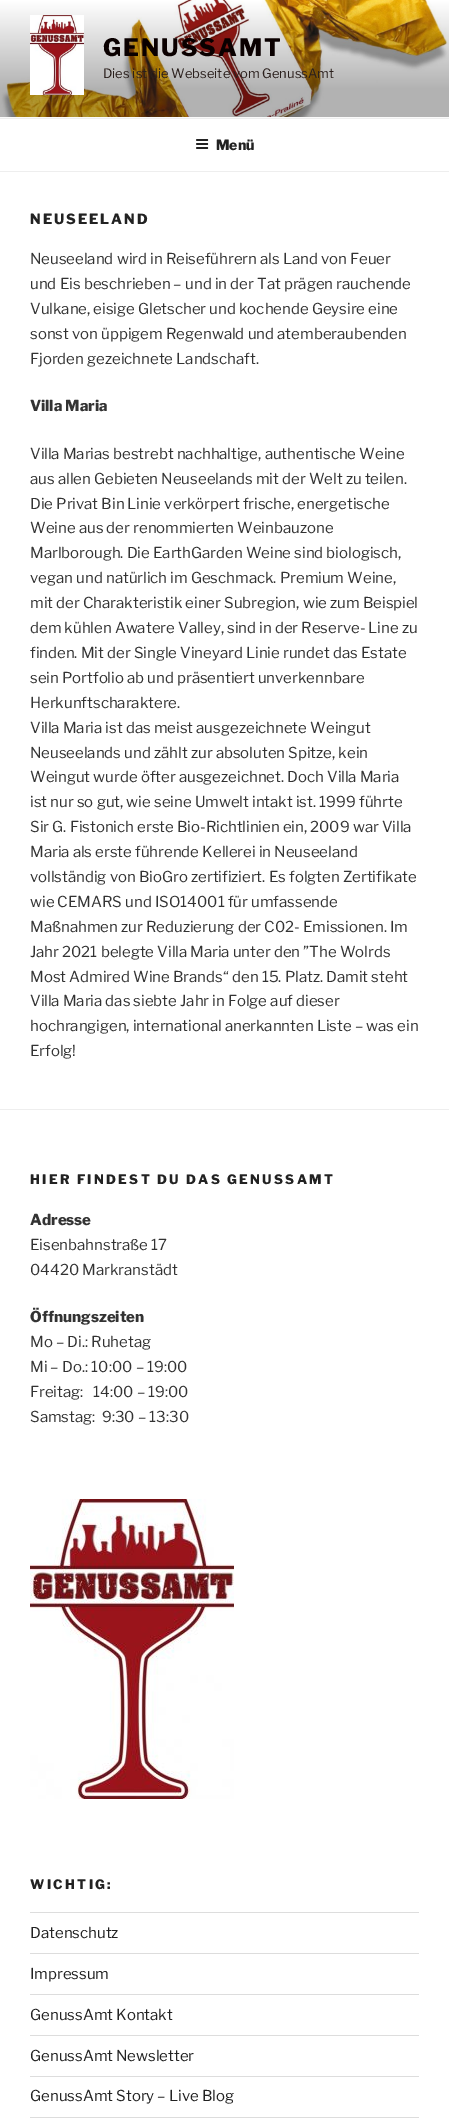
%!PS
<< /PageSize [449 2118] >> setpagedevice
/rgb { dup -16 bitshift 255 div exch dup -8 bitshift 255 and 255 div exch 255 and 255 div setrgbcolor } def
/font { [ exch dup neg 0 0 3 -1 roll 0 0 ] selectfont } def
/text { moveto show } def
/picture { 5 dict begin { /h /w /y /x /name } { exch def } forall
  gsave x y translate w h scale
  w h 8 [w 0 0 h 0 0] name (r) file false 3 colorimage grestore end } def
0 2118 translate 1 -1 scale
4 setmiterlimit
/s1 { /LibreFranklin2-Thin 13 font 16#2B201D rgb } def
/s2 { /LibreFranklin-Thin 14 font 16#222222 rgb } def
/s3 { /LibreFranklin2-Thin 15 font 16#333333 rgb } def
/s4 { /LibreFranklin-Thin 15 font 16#333333 rgb } def
/s5 { /LibreFranklin2-Thin 15 font 16#222222 rgb } def
16#FFFFFF rgb
0 0 449 2118 rectfill
16#FAFAFA rgb
0 117 449 1 rectfill
(pic1.raw) 0 0 449 117 picture
(pic2.raw) 30 15 54 80 picture
/LibreFranklin-Thin 24 font
16#0A0000 rgb
103 56 moveto 2 0 (GENUSSAMT) ashow
s1
(Dies ist die Webseite vom GenussAmt) 103 78 text
16#EEEEEE rgb
0 118 449 1 rectfill
0 171 449 1 rectfill
(pic3.raw) 196 139 13 10 picture
s2
(Menü) 216 150 text
30 224 moveto 2 0 (NEUSEELAND) ashow
s3
(Neuseeland wird in Reiseführern als Land von Feuer) 30 264 text
(und Eis beschrieben – und in der Tat prägen rauchende) 30 289 text
(Vulkane, eisige Gletscher und kochende Geysire eine) 30 314 text
(sonst von üppigem Regenwald und atemberaubenden) 30 339 text
(Fjorden gezeichnete Landschaft.) 30 364 text
s4
(Villa Maria) 30 411 text
s3
(Villa Marias bestrebt nachhaltige, authentische Weine) 30 459 text
(aus allen Gebieten Neuseelands mit der Welt zu teilen.) 30 484 text
(Die Privat Bin Linie verkörpert frische, energetische) 30 509 text
(Weine aus der renommierten Weinbauzone) 30 533 text
(Marlborough. Die EarthGarden Weine sind biologisch,) 30 558 text
(vegan und natürlich im Geschmack. Premium Weine,) 30 583 text
(mit der Charakteristik einer Subregion, wie zum Beispiel) 30 608 text
(dem kühlen Awatere Valley, sind in der Reserve- Line zu) 30 633 text
(finden. Mit der Single Vineyard Linie rundet das Estate) 30 658 text
(sein Portfolio ab und präsentiert unverkennbare) 30 683 text
(Herkunftscharaktere.) 30 708 text
(Villa Maria ist das meist ausgezeichnete Weingut) 30 733 text
(Neuseelands und zählt zur absoluten Spitze, kein) 30 758 text
(Weingut wurde öfter ausgezeichnet. Doch Villa Maria) 30 782 text
(ist nur so gut, wie seine Umwelt intakt ist. 1999 führte) 30 807 text
(Sir G. Fistonich erste Bio-Richtlinien ein, 2009 war Villa) 30 832 text
(Maria als erste führende Kellerei in Neuseeland) 30 857 text
(vollständig von BioGro zertifiziert. Es folgten Zertifikate) 30 882 text
(wie CEMARS und ISO14001 für umfassende) 30 907 text
(Maßnahmen zur Reduzierung der C02- Emissionen. Im) 30 932 text
(Jahr 2021 belegte Villa Maria unter den ”The Wolrds) 30 957 text
(Most Admired Wine Brands“ den 15. Platz. Damit steht) 30 982 text
(Villa Maria das siebte Jahr in Folge auf dieser) 30 1006 text
(hochrangigen, international anerkannten Liste – was ein) 30 1031 text
(Erfolg!) 30 1056 text
16#EEEEEE rgb
0 1109 449 1 rectfill
/LibreFranklin-Thin 13 font
16#222222 rgb
30 1184 moveto 2.35 0 (HIER FINDEST DU DAS GENUSSAMT) ashow
s4
(Adresse) 30 1225 text
s3
(Eisenbahnstraße 17) 30 1250 text
(04420 Markranstädt) 30 1275 text
s4
(Öffnungszeiten) 30 1322 text
s3
(Mo – Di.: Ruhetag) 30 1347 text
(Mi – Do.: 10:00 – 19:00) 30 1372 text
(Freitag:   14:00 – 19:00) 30 1397 text
(Samstag:  9:30 – 13:30) 30 1422 text
(pic4.raw) 30 1499 204 300 picture
/LibreFranklin-Thin 13 font
16#222222 rgb
30 1889 moveto 2.35 0 (WICHTIG:) ashow
16#DDDDDD rgb
30 1912 389 1 rectfill
30 1953 389 1 rectfill
s5
(Datenschutz) 30 1938 text
16#DDDDDD rgb
30 1994 389 1 rectfill
s5
(Impressum) 30 1979 text
16#DDDDDD rgb
30 2035 389 1 rectfill
s5
(GenussAmt Kontakt) 30 2020 text
16#DDDDDD rgb
30 2076 389 1 rectfill
s5
(GenussAmt Newsletter) 30 2061 text
16#DDDDDD rgb
30 2117 389 1 rectfill
s5
(GenussAmt Story – Live Blog) 30 2101 text
showpage
